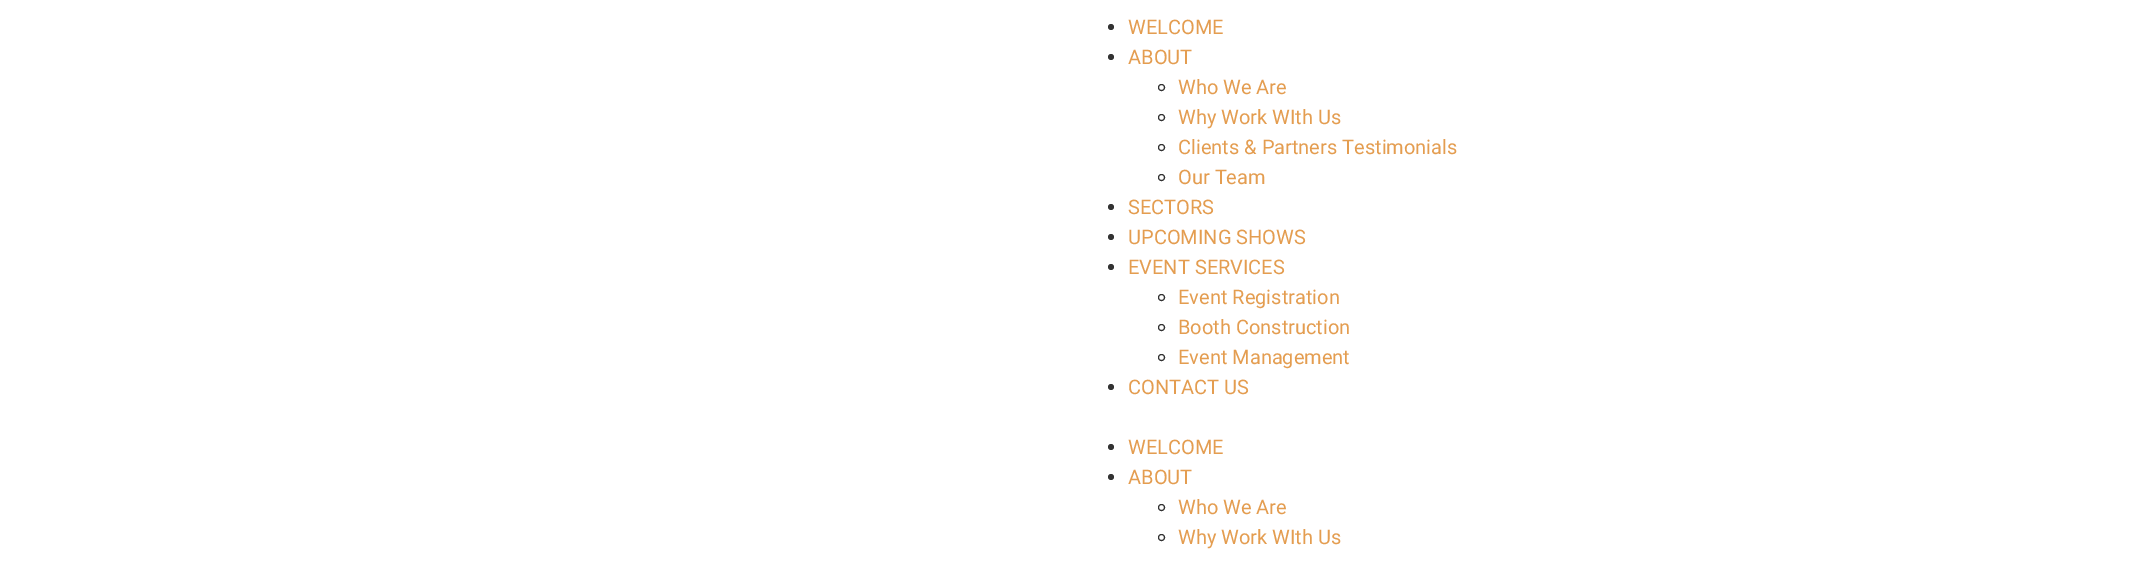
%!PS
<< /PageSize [2131 564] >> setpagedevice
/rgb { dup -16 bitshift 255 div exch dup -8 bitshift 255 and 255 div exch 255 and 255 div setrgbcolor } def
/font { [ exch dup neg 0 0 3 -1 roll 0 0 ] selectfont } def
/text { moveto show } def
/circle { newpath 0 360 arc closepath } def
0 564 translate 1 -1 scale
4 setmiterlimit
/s1 { /Roboto-Regular 20 font 16#E49D50 rgb } def
16#FFFFFF rgb
0 0 2131 564 rectfill
16#333333 rgb
1111 27 3 circle fill
s1
(WELCOME) 1128 34 text
16#333333 rgb
1111 57 3 circle fill
s1
(ABOUT) 1128 64 text
16#333333 rgb
1161.5 87.5 3 circle stroke
s1
(Who We Are) 1178 94 text
16#333333 rgb
1161.5 117.5 3 circle stroke
s1
(Why Work WIth Us) 1178 124 text
16#333333 rgb
1161.5 147.5 3 circle stroke
s1
(Clients & Partners Testimonials) 1178 154 text
16#333333 rgb
1161.5 177.5 3 circle stroke
s1
(Our Team) 1178 184 text
16#333333 rgb
1111 207 3 circle fill
s1
(SECTORS) 1128 214 text
16#333333 rgb
1111 237 3 circle fill
s1
(UPCOMING SHOWS) 1128 244 text
16#333333 rgb
1111 267 3 circle fill
s1
(EVENT SERVICES) 1128 274 text
16#333333 rgb
1161.5 297.5 3 circle stroke
s1
(Event Registration) 1178 304 text
16#333333 rgb
1161.5 327.5 3 circle stroke
s1
(Booth Construction) 1178 334 text
16#333333 rgb
1161.5 357.5 3 circle stroke
s1
(Event Management) 1178 364 text
16#333333 rgb
1111 387 3 circle fill
s1
(CONTACT US) 1128 394 text
16#333333 rgb
1111 447 3 circle fill
s1
(WELCOME) 1128 454 text
16#333333 rgb
1111 477 3 circle fill
s1
(ABOUT) 1128 484 text
16#333333 rgb
1161.5 507.5 3 circle stroke
s1
(Who We Are) 1178 514 text
16#333333 rgb
1161.5 537.5 3 circle stroke
s1
(Why Work WIth Us) 1178 544 text
showpage
